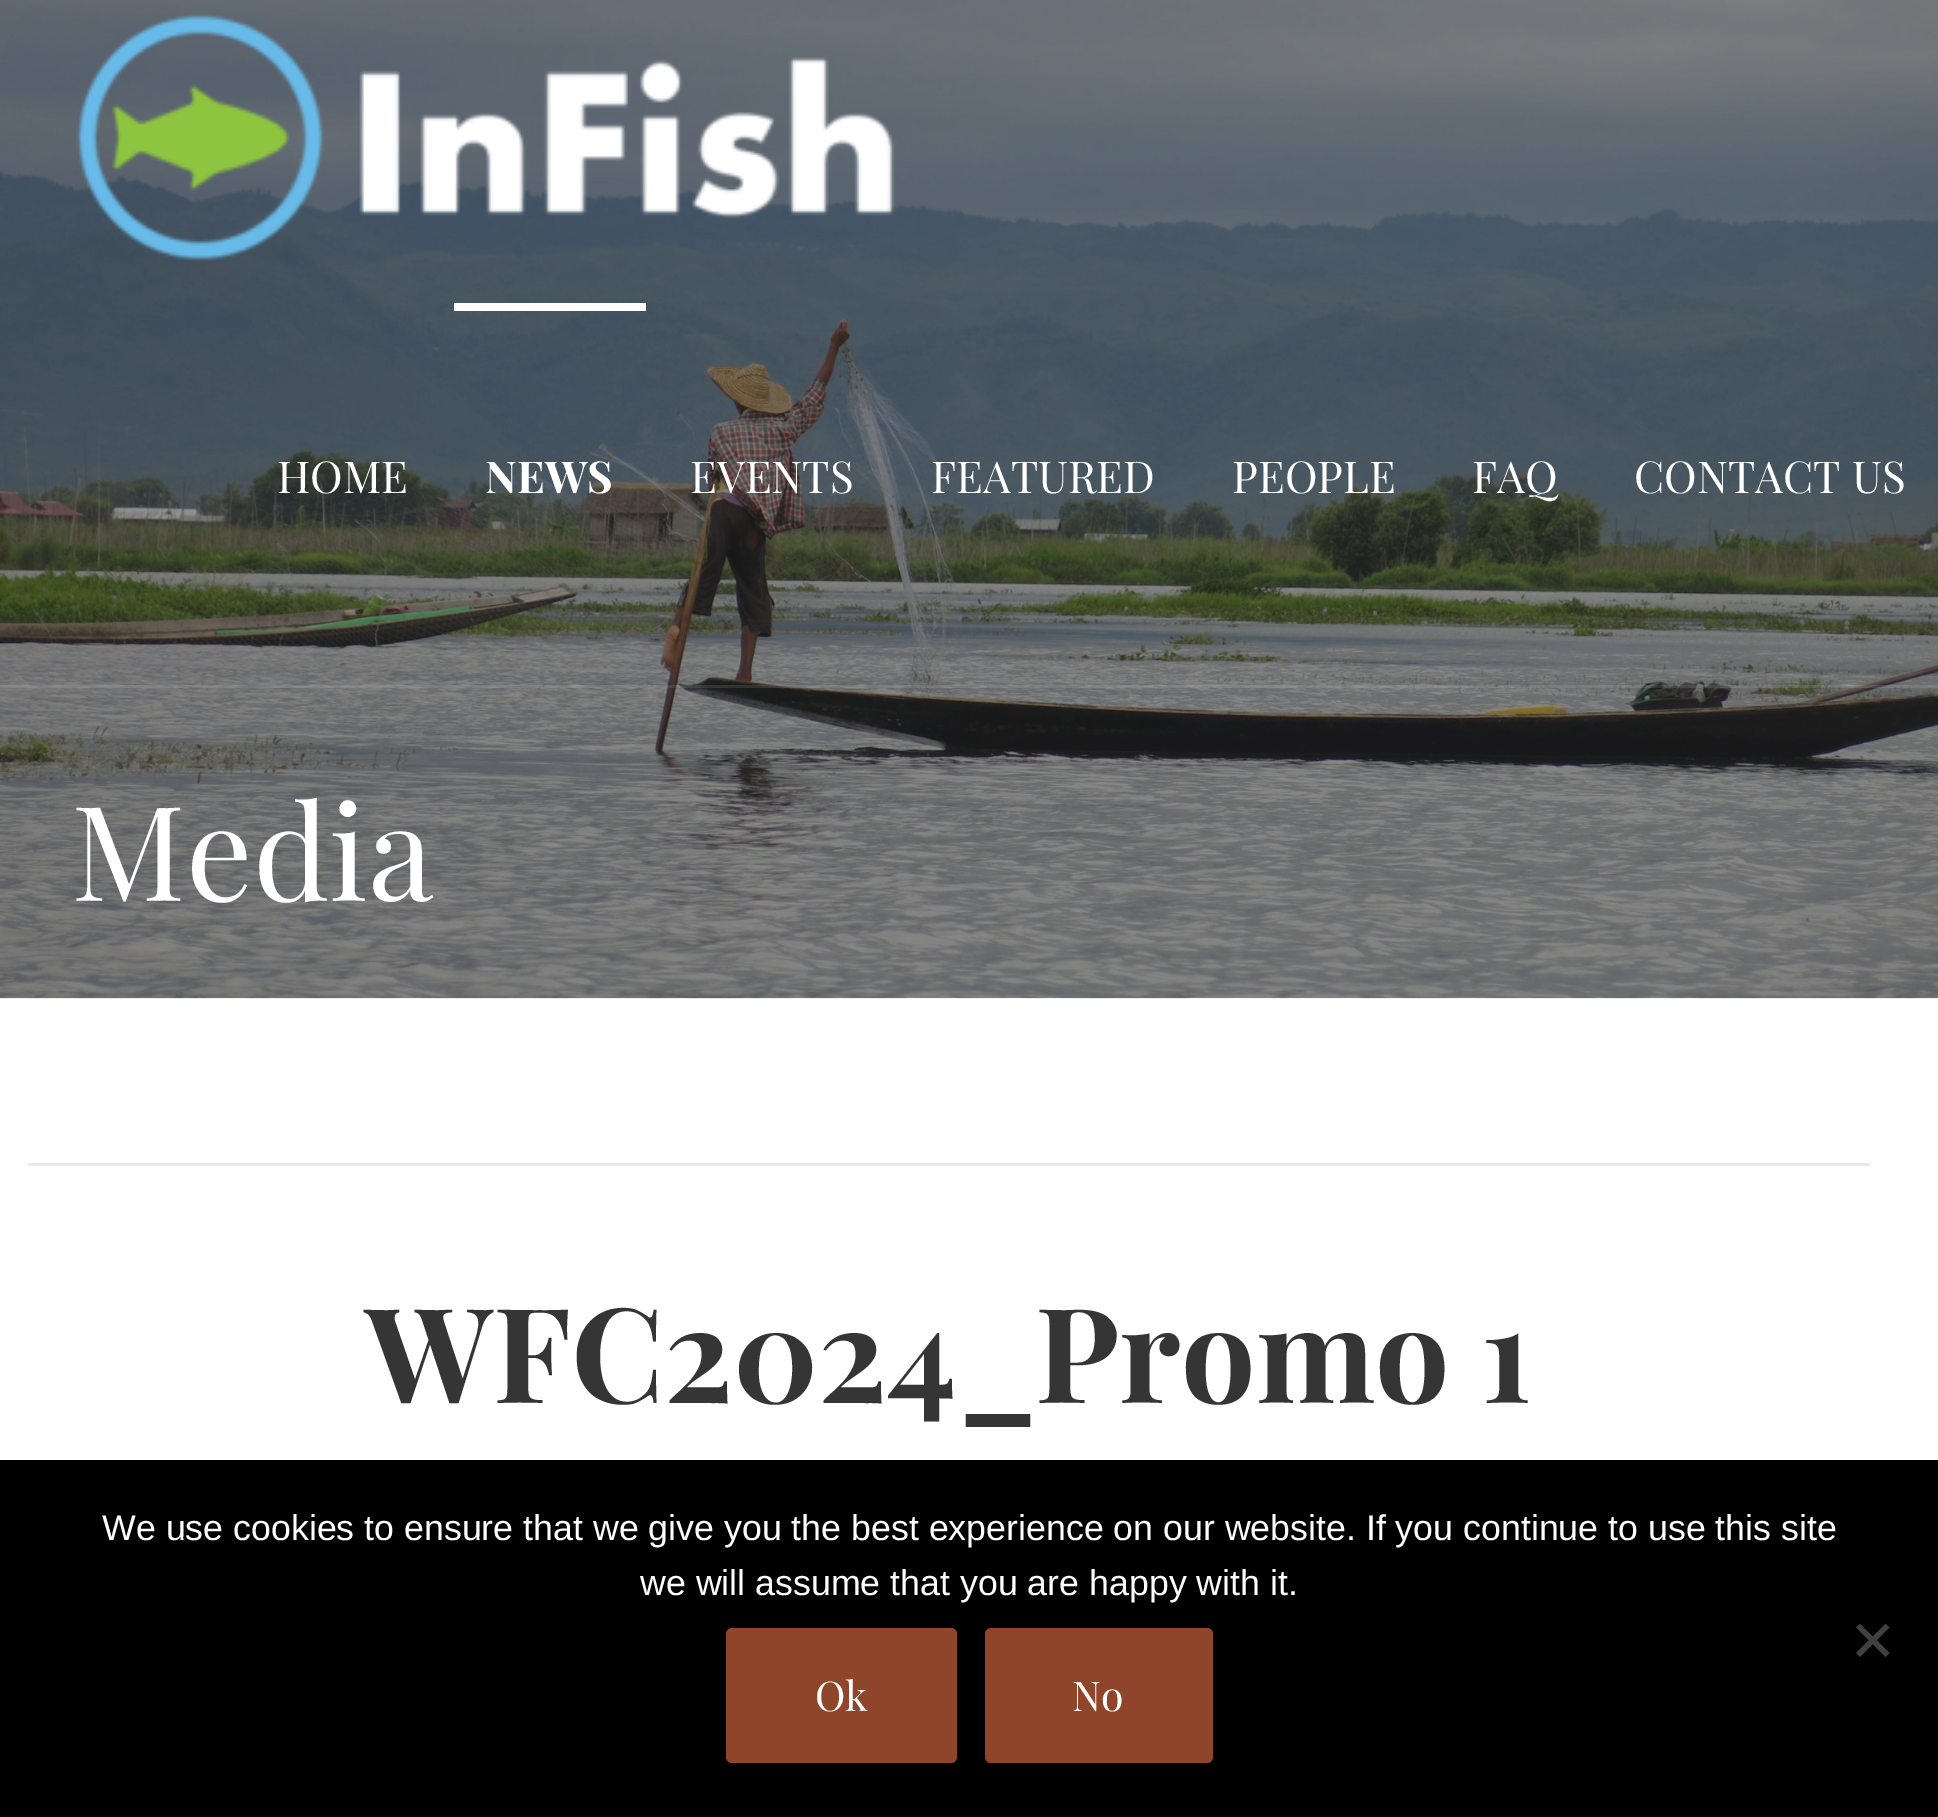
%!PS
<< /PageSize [1938 1817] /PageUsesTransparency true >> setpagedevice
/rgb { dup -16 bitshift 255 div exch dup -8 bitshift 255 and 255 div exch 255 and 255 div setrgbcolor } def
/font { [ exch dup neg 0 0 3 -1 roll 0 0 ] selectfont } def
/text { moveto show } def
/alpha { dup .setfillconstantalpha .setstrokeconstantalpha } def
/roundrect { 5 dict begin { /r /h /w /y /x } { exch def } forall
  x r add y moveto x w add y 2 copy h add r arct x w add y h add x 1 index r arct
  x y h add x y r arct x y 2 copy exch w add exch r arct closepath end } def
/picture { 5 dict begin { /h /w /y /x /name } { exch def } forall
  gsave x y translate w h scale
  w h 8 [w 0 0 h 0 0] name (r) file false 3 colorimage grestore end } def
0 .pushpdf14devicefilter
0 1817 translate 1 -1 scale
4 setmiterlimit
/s1 { /PlayfairDisplay-Regular 44 font 16#FFFFFF rgb } def
/s2 { /PlayfairDisplay-Bold 44 font 16#FFFFFF rgb } def
/s3 { /PlayfairDisplay-Regular 132 font 16#FFFFFF rgb } def
/s4 { /PlayfairDisplay-Bold 132 font 16#353535 rgb } def
/s5 { /LiberationSans-Regular 35.75 font 16#FFFFFF rgb } def
/s6 { /PlayfairDisplay-Regular 41 font 16#FFFFFF rgb } def
16#FFFFFF rgb
0 0 1938 1817 rectfill
(pic1.raw) 0 0 1938 999 picture
0.1 alpha
0 685 1938 3 rectfill
1 alpha
(pic2.raw) 76 14 819 248 picture
s1
(HOME) 277 493 text
454 303 192 8 rectfill
s2
(NEWS) 485 493 text
s1
(EVENTS) 690 493 text
(FEATURED) 931 493 text
(PEOPLE) 1232 493 text
(FAQ) 1472 493 text
(CONTACT US) 1634 493 text
s3
(Media) 71 901 text
16#E9E9E9 rgb
28 1163 1842 3 rectfill
s4
(WFC2024_Promo 1) 365 1403 text
16#000000 rgb
0 1460 1938 357 rectfill
s5
(We use cookies to ensure that we give you the best experience on our website. If you continue to use this site) 102 1540 text
(we will assume that you are happy with it.) 640 1595 text
16#404040 rgb
1885.5 1624 moveto 1889.5 1627.5 lineto 1860 1657 lineto 1856 1653 lineto closepath fill
1856 1627.5 moveto 1860 1624 lineto 1889.5 1653 lineto 1885.5 1657 lineto closepath fill
16#8E452A rgb
726 1628 231 135 6 roundrect fill
s6
(Ok) 815 1711 text
16#8E452A rgb
985 1628 228 135 6 roundrect fill
s6
(No) 1072 1711 text
.poppdf14devicefilter showpage
